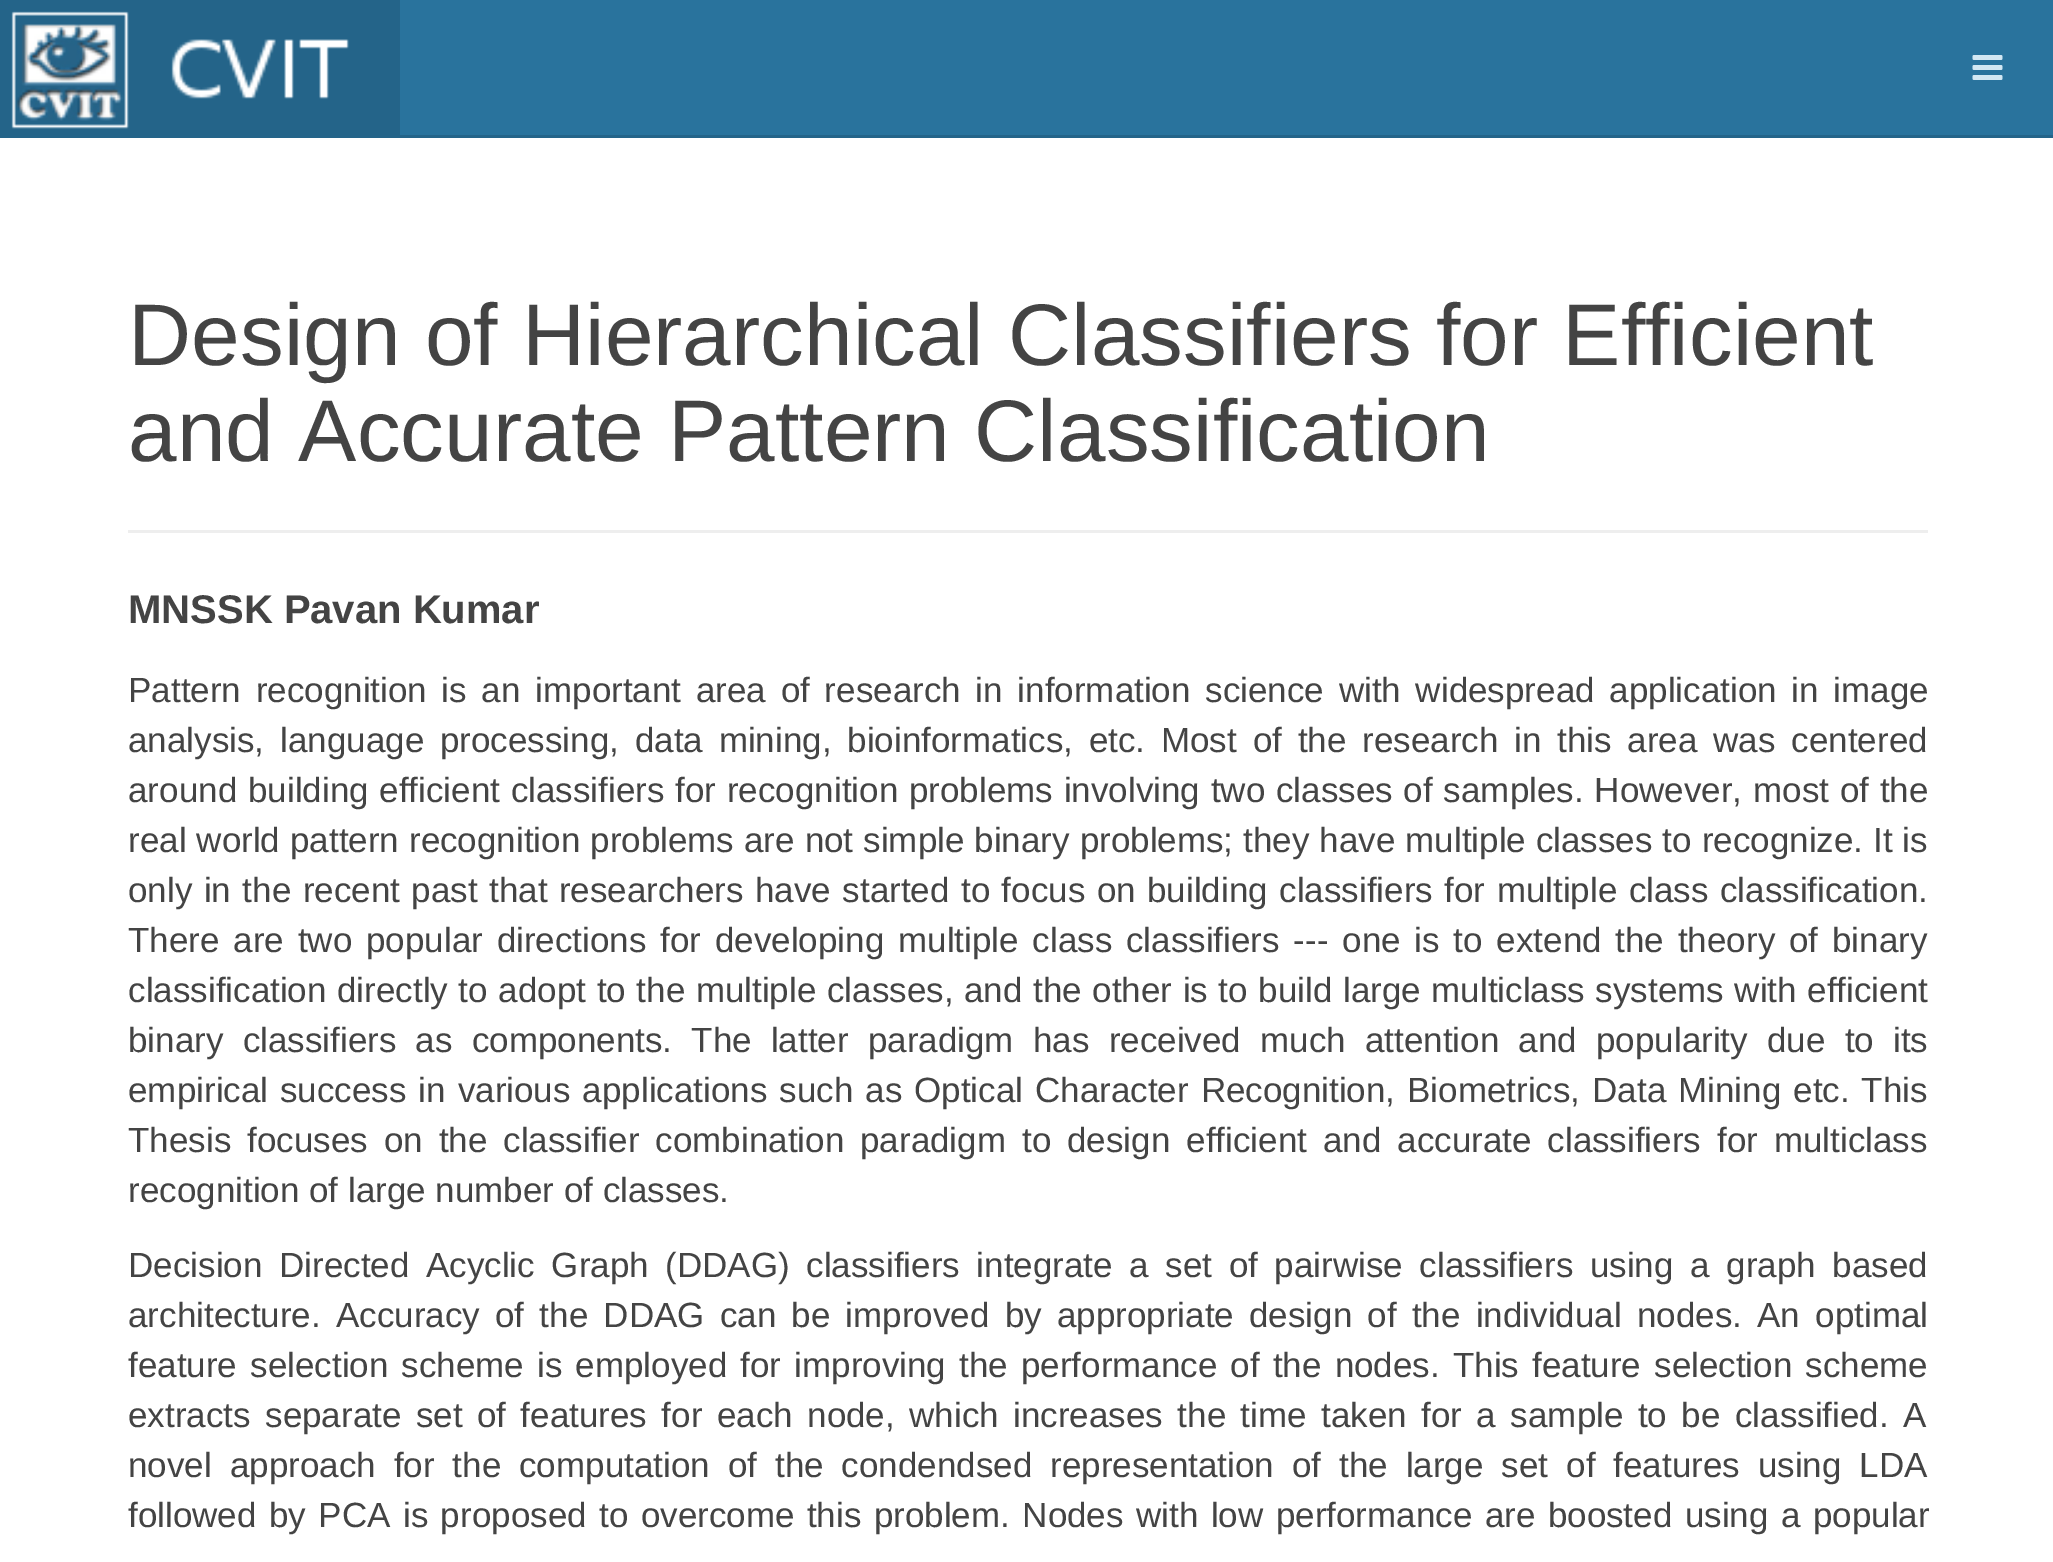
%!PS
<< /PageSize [2053 1562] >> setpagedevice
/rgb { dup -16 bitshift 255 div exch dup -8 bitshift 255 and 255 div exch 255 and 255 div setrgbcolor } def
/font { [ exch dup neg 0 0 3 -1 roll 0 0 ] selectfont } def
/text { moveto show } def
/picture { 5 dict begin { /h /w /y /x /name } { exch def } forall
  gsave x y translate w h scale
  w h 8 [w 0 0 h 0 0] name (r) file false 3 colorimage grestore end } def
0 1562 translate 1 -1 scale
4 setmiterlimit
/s1 { /LiberationSans-Regular 87.5 font 16#444444 rgb } def
/s2 { /LiberationSans-Bold 40 font 16#444444 rgb } def
/s3 { /LiberationSans-Regular 35 font 16#444444 rgb } def
16#FFFFFF rgb
0 0 2053 1562 rectfill
16#29739D rgb
400 0 1653 135 rectfill
16#246489 rgb
400 135 1653 3 rectfill
0 0 400 138 rectfill
(pic1.raw) 11 11 338 118 picture
(pic2.raw) 1972 55 31 25 picture
s1
(Design of Hierarchical Classifiers for Efficient) 128 365 text
(and Accurate Pattern Classification) 128 461 text
16#EEEEEE rgb
128 530 1800 3 rectfill
s2
(MNSSK Pavan Kumar) 128 623 text
/LiberationSans-Regular 35 font
128 702 moveto 5 0 32 (Pattern recognition is an important area of research in information science with widespread application in image) widthshow
128 752 moveto 6.1 0 32 (analysis, language processing, data mining, bioinformatics, etc. Most of the research in this area was centered) widthshow
128 802 moveto 1.1 0 32 (around building efficient classifiers for recognition problems involving two classes of samples. However, most of the) widthshow
128 852 moveto 0.25 0 32 (real world pattern recognition problems are not simple binary problems; they have multiple classes to recognize. It is) widthshow
128 902 moveto 1.75 0 32 (only in the recent past that researchers have started to focus on building classifiers for multiple class classification.) widthshow
128 952 moveto 4.1 0 32 (There are two popular directions for developing multiple class classifiers --- one is to extend the theory of binary) widthshow
128 1002 moveto 0.9 0 32 (classification directly to adopt to the multiple classes, and the other is to build large multiclass systems with efficient) widthshow
128 1052 moveto 9.5 0 32 (binary classifiers as components. The latter paradigm has received much attention and popularity due to its) widthshow
128 1102 moveto 2.25 0 32 (empirical success in various applications such as Optical Character Recognition, Biometrics, Data Mining etc. This) widthshow
128 1152 moveto 6.25 0 32 (Thesis focuses on the classifier combination paradigm to design efficient and accurate classifiers for multiclass) widthshow
(recognition of large number of classes.) 128 1202 text
128 1277 moveto 6.9 0 32 (Decision Directed Acyclic Graph \(DDAG\) classifiers integrate a set of pairwise classifiers using a graph based) widthshow
128 1327 moveto 5.5 0 32 (architecture. Accuracy of the DDAG can be improved by appropriate design of the individual nodes. An optimal) widthshow
128 1377 moveto 3.4 0 32 (feature selection scheme is employed for improving the performance of the nodes. This feature selection scheme) widthshow
128 1427 moveto 4.75 0 32 (extracts separate set of features for each node, which increases the time taken for a sample to be classified. A) widthshow
128 1477 moveto 8.25 0 32 (novel approach for the computation of the condendsed representation of the large set of features using LDA) widthshow
128 1527 moveto 2.75 0 32 (followed by PCA is proposed to overcome this problem. Nodes with low performance are boosted using a popular) widthshow
showpage
